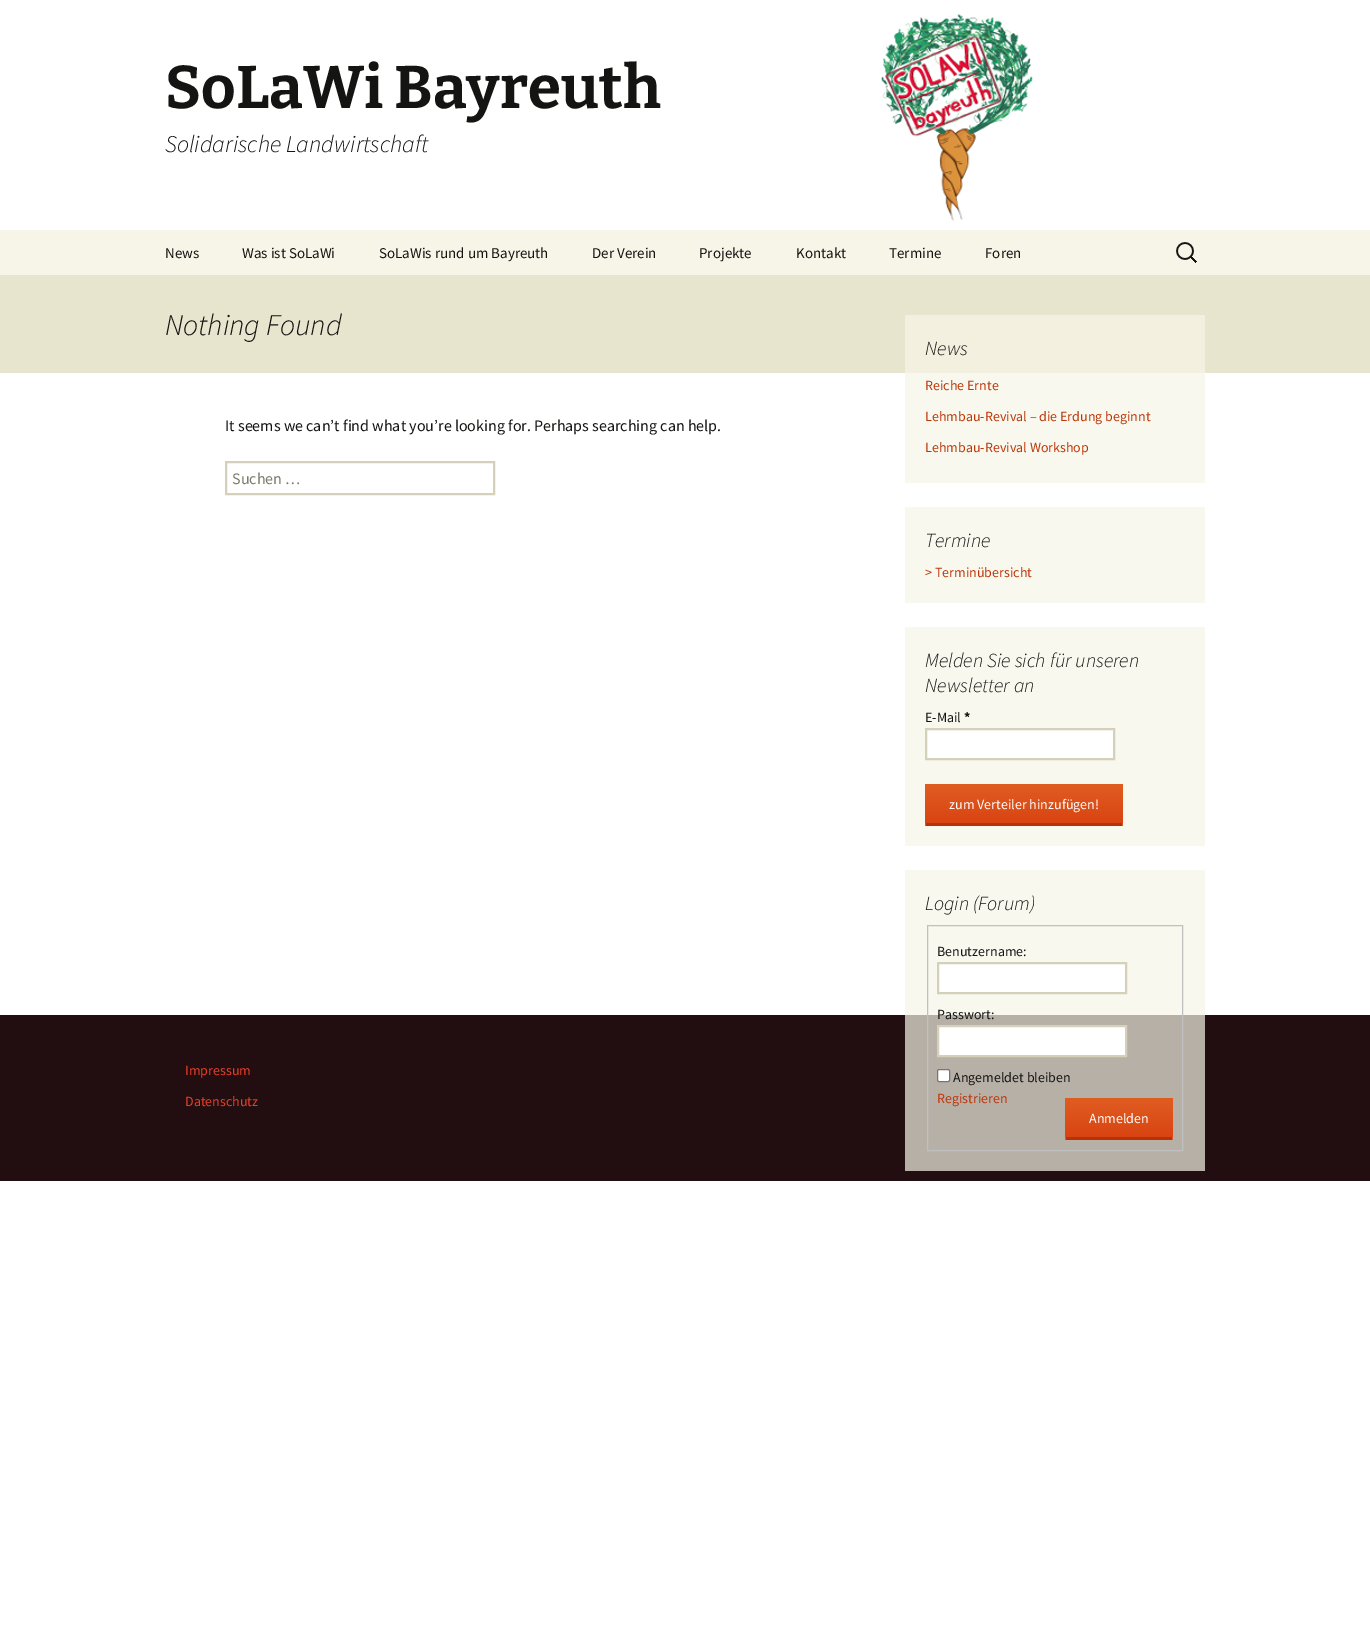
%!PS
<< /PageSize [1370 1635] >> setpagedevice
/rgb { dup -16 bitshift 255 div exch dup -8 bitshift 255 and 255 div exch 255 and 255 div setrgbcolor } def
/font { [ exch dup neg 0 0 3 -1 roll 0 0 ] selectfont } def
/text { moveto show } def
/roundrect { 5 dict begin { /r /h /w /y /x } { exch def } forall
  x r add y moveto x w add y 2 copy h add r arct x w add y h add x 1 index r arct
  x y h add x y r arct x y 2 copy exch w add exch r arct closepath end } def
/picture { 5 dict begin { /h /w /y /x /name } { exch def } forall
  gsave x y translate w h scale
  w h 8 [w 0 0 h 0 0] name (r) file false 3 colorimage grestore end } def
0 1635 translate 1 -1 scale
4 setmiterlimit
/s1 { /Bitter-Bold 60 font 16#141412 rgb } def
/s2 { /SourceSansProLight-LightItalic 24 font 16#141412 rgb } def
/s3 { /SourceSansPro-Regular 15 font 16#141412 rgb } def
/s4 { /SourceSansProLight-LightItalic 30 font 16#141412 rgb } def
/s5 { /SourceSansPro-Regular 16 font 16#141412 rgb } def
/s6 { /SourceSansPro-Regular 16 font 16#7D7B6D rgb } def
/s7 { /SourceSansProLight-LightItalic 20 font 16#141412 rgb } def
/s8 { /SourceSansPro-Regular 14 font 16#BC360A rgb } def
/s9 { /SourceSansPro-Regular 14 font 16#141412 rgb } def
/s10 { /SourceSansPro-Bold 14 font 16#141412 rgb } def
/s11 { /SourceSansPro-Regular 14 font 16#FFFFFF rgb } def
/s12 { /SourceSansPro-Regular 14 font 16#E6402A rgb } def
16#FFFFFF rgb
0 0 1370 1635 rectfill
16#F9F8EE rgb
905 870 300 145 rectfill
905 373 300 110 rectfill
(pic1.raw) 881 14 152 207 picture
s1
(SoLaWi Bayreuth) 165 108 text
s2
(Solidarische Landwirtschaft) 165 152 text
16#F7F5E7 rgb
0 230 1370 45 rectfill
s3
(News) 165 258 text
(Was ist SoLaWi) 242 258 text
(SoLaWis rund um Bayreuth) 379 258 text
(Der Verein) 592 258 text
(Projekte) 699 258 text
(Kontakt) 796 258 text
(Termine) 889 258 text
(Foren) 985 258 text
(pic2.raw) 1176 242 21 21 picture
16#E8E5CE rgb
0 275 1370 98 rectfill
16#F3F0E0 rgb
905 315 300 58 rectfill
s4
(Nothing Found) 165 335 text
s5
(It seems we can’t find what you’re looking for. Perhaps searching can help.) 225 431 text
16#D4D0BA rgb
2 setlinewidth
226 462 268 32 rectstroke
s6
(Suchen …) 232 484 text
s7
(News) 925 355 text
s8
(Reiche Ernte) 925 390 text
(Lehmbau-Revival – die Erdung beginnt) 925 421 text
(Lehmbau-Revival Workshop) 925 452 text
16#F9F8EE rgb
905 507 300 96 rectfill
s7
(Termine) 925 547 text
s8
(> Terminübersicht) 925 577 text
16#F9F8EE rgb
905 627 300 219 rectfill
s7
(Melden Sie sich für unseren) 925 667 text
(Newsletter an) 925 692 text
s9
(E-Mail) 925 722 text
s10
(*) 964 722 text
16#FFFFFF rgb
926 729 moveto 1114 729 lineto 1114 759 lineto 926 759 lineto closepath gsave fill grestore
16#D4D0BA rgb
stroke
gsave 927 784 moveto 1121 784 lineto 1122 784 1123 785 1123 786 curveto 1123 823 lineto 925 823 lineto 925 786 lineto 925 785 926 784 927 784 curveto closepath clip newpath
<< /ShadingType 2 /ColorSpace /DeviceRGB /Coords [1024 784 1024 823] /Extend [true true] /Function << /FunctionType 2 /Domain [0 1] /C0 [0.878 0.365 0.133] /C1 [0.851 0.267 0.071] /N 1 >> >> shfill grestore
gsave 925 823 moveto 1123 823 lineto 1123 824 lineto 1123 825 1122 826 1121 826 curveto 927 826 lineto 926 826 925 825 925 824 curveto closepath clip newpath
<< /ShadingType 2 /ColorSpace /DeviceRGB /Coords [1024 823 1024 862] /Extend [true true] /Function << /FunctionType 2 /Domain [0 1] /C0 [0.878 0.365 0.133] /C1 [0.851 0.267 0.071] /N 1 >> >> shfill grestore
16#B93207 rgb
926 823 196 3 rectfill
s11
(zum Verteiler hinzufügen!) 949 809 text
s7
(Login \(Forum\)) 925 910 text
16#220E10 rgb
0 1015 1370 166 rectfill
16#B7B0A7 rgb
905 1015 300 156 rectfill
16#C0C0C0 rgb
1 setlinewidth
927.5 925.5 255 225 rectstroke
s9
(Benutzername:) 937 956 text
16#FFFFFF rgb
938 963 moveto 1126 963 lineto 1126 993 lineto 938 993 lineto closepath gsave fill grestore
16#D4D0BA rgb
2 setlinewidth
stroke
s9
(Passwort:) 937 1019 text
16#FFFFFF rgb
938 1026 moveto 1126 1026 lineto 1126 1056 lineto 938 1056 lineto closepath gsave fill grestore
16#D4D0BA rgb
stroke
16#FFFFFF rgb
937.5 1069.5 12 12 1.5 roundrect gsave fill grestore
16#767676 rgb
1 setlinewidth
stroke
s9
(Angemeldet bleiben) 953 1082 text
s8
(Registrieren) 937 1103 text
gsave 1067 1098 moveto 1171 1098 lineto 1172 1098 1173 1099 1173 1100 curveto 1173 1137 lineto 1065 1137 lineto 1065 1100 lineto 1065 1099 1066 1098 1067 1098 curveto closepath clip newpath
<< /ShadingType 2 /ColorSpace /DeviceRGB /Coords [1119 1098 1119 1137] /Extend [true true] /Function << /FunctionType 2 /Domain [0 1] /C0 [0.878 0.365 0.133] /C1 [0.851 0.267 0.071] /N 1 >> >> shfill grestore
gsave 1065 1137 moveto 1173 1137 lineto 1173 1138 lineto 1173 1139 1172 1140 1171 1140 curveto 1067 1140 lineto 1066 1140 1065 1139 1065 1138 curveto closepath clip newpath
<< /ShadingType 2 /ColorSpace /DeviceRGB /Coords [1119 1137 1119 1176] /Extend [true true] /Function << /FunctionType 2 /Domain [0 1] /C0 [0.878 0.365 0.133] /C1 [0.851 0.267 0.071] /N 1 >> >> shfill grestore
16#B93207 rgb
1066 1137 106 3 rectfill
s11
(Anmelden) 1089 1123 text
s12
(Impressum) 185 1075 text
(Datenschutz) 185 1106 text
showpage
